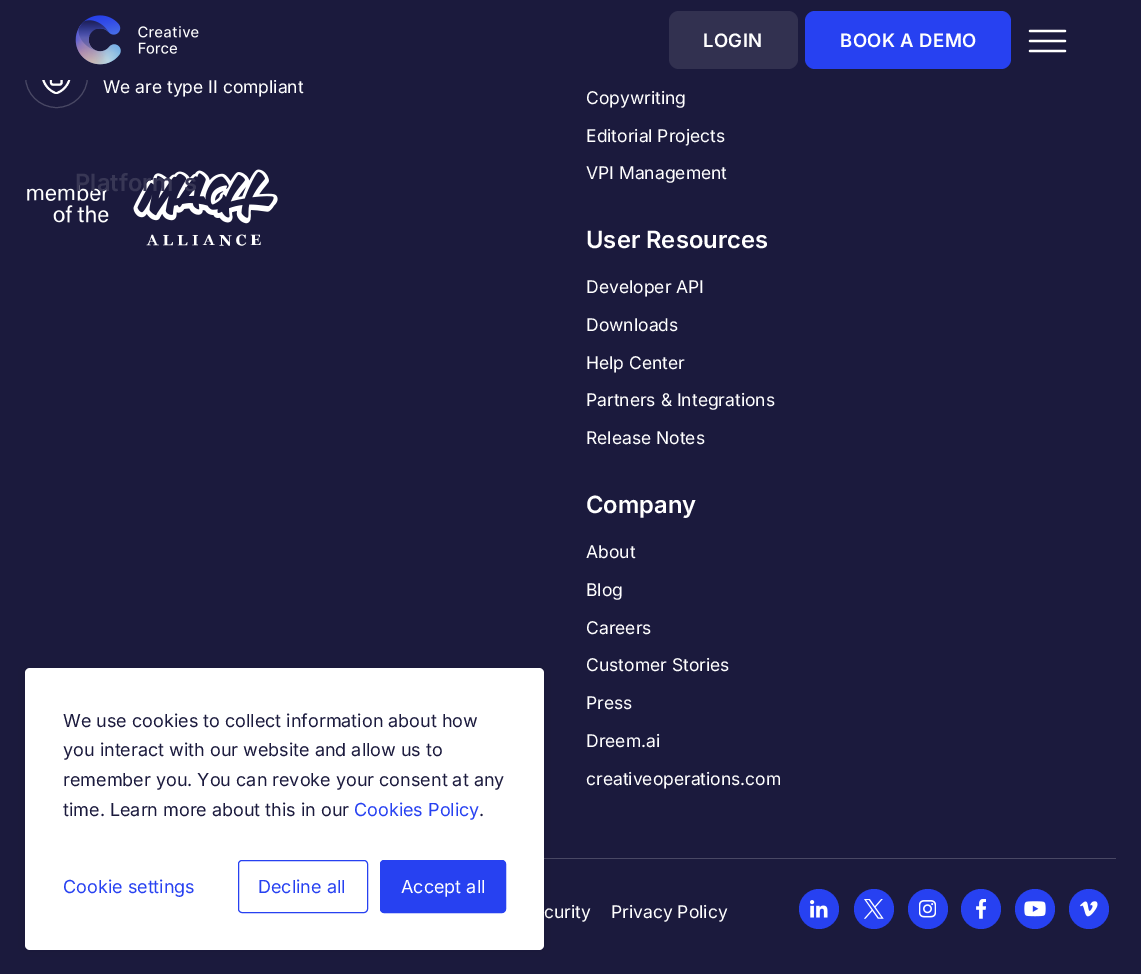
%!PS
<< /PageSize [1141 974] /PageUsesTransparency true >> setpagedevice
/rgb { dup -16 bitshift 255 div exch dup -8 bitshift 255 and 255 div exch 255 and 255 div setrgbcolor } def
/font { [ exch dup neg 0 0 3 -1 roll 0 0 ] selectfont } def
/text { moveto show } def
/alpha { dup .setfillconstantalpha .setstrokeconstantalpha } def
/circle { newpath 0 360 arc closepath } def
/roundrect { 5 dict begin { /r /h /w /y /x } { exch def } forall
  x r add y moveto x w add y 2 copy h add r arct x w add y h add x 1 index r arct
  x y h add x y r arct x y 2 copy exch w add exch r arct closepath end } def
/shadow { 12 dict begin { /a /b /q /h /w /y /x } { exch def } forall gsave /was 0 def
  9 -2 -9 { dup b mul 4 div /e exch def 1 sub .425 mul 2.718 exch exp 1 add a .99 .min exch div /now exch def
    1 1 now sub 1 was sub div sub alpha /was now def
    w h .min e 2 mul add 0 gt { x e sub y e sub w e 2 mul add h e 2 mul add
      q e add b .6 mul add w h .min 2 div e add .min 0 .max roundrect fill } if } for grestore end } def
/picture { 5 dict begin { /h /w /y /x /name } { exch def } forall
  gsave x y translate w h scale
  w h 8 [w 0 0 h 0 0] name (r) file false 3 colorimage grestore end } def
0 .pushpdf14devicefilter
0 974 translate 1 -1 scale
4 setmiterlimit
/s1 { /Inter-Regular 17.5 font 16#FFFFFF rgb } def
/s2 { /Inter-SemiBold 23.75 font 16#383755 rgb } def
/s3 { /Inter-SemiBold 23.75 font 16#FFFFFF rgb } def
/s4 { /Inter-Regular 18 font 16#1B1A3D rgb } def
/s5 { /Inter-Regular 18 font 16#2741F1 rgb } def
/s6 { /Inter-Regular 18 font 16#FFFFFF rgb } def
16#1B1A3D rgb
0 0 1141 974 rectfill
16#494864 rgb
56.5 76.5 31 circle stroke
s1
(We are type II compliant) 103 93 text
16#1B1A3D rgb
25 45 251 35 rectfill
(pic1.raw) 75 15 124 50 picture
16#323150 rgb
669 11 129 58 10 roundrect fill
/Inter-SemiBold 18.5 font
16#FFFFFF rgb
703 47 moveto 0.4 0 (LOGIN) ashow
16#2741F1 rgb
805 11 206 58 10 roundrect fill
16#FFFFFF rgb
840 47 moveto 0.4 0 (BOOK A DEMO) ashow
2.2 setlinewidth
1 setlinecap
1 setlinejoin
1030 31 moveto 1065 31 lineto 1030 41 moveto 1065 41 lineto 1030 51 moveto 1065 51 lineto stroke
(pic3.raw) 27 169 251 77 picture
s2
(Platform) 75 191 text
(s) 184 191 text
(pic2.raw) 42 80 29 14 picture
s1
(Copywriting) 586 104 text
(Editorial Projects) 586 142 text
(VPI Management) 586 179 text
s3
(User Resources) 586 248 text
s1
(Developer API) 586 293 text
(Downloads) 586 331 text
(Help Center) 586 369 text
(Partners & Integrations) 586 406 text
(Release Notes) 586 444 text
s3
(Company) 586 513 text
s1
(About) 586 558 text
(Blog) 586 596 text
(Careers) 586 634 text
(Customer Stories) 586 671 text
(Press) 586 709 text
(Dreem.ai) 586 747 text
(creativeoperations.com) 586 785 text
16#494864 rgb
544 858 572 1 rectfill
s1
(curity) 544 918 text
(Privacy Policy) 611 918 text
16#2741F1 rgb
819 909 20 circle fill
(pic4.raw) 810 900 18 18 picture
874 909 20 circle fill
(pic5.raw) 864 899 20 20 picture
928 909 20 circle fill
(pic6.raw) 919 900 17 18 picture
981 909 20 circle fill
(pic7.raw) 976 899 10 20 picture
1035 909 20 circle fill
(pic8.raw) 1024 901 22 16 picture
1089 909 20 circle fill
(pic9.raw) 1080 901 18 16 picture
16#000000 rgb
25 668 519 282 0 10 0.1 shadow
16#FFFFFF rgb
25 668 519 282 5 roundrect fill
s4
(We use cookies to collect information about how) 63 727 text
(you interact with our website and allow us to) 63 756 text
(remember you. You can revoke your consent at any) 63 786 text
(time. Learn more about this in our) 63 816 text
s5
(Cookies Policy) 354 816 text
s4
(.) 479 816 text
s5
(Cookie settings) 63 893 text
1 setlinewidth
0 setlinecap
0 setlinejoin
238.5 860.5 129 52 3.5 roundrect stroke
(Decline all) 258 893 text
380.5 860.5 125 52 3.5 roundrect gsave fill grestore
stroke
s6
(Accept all) 401 893 text
.poppdf14devicefilter showpage
